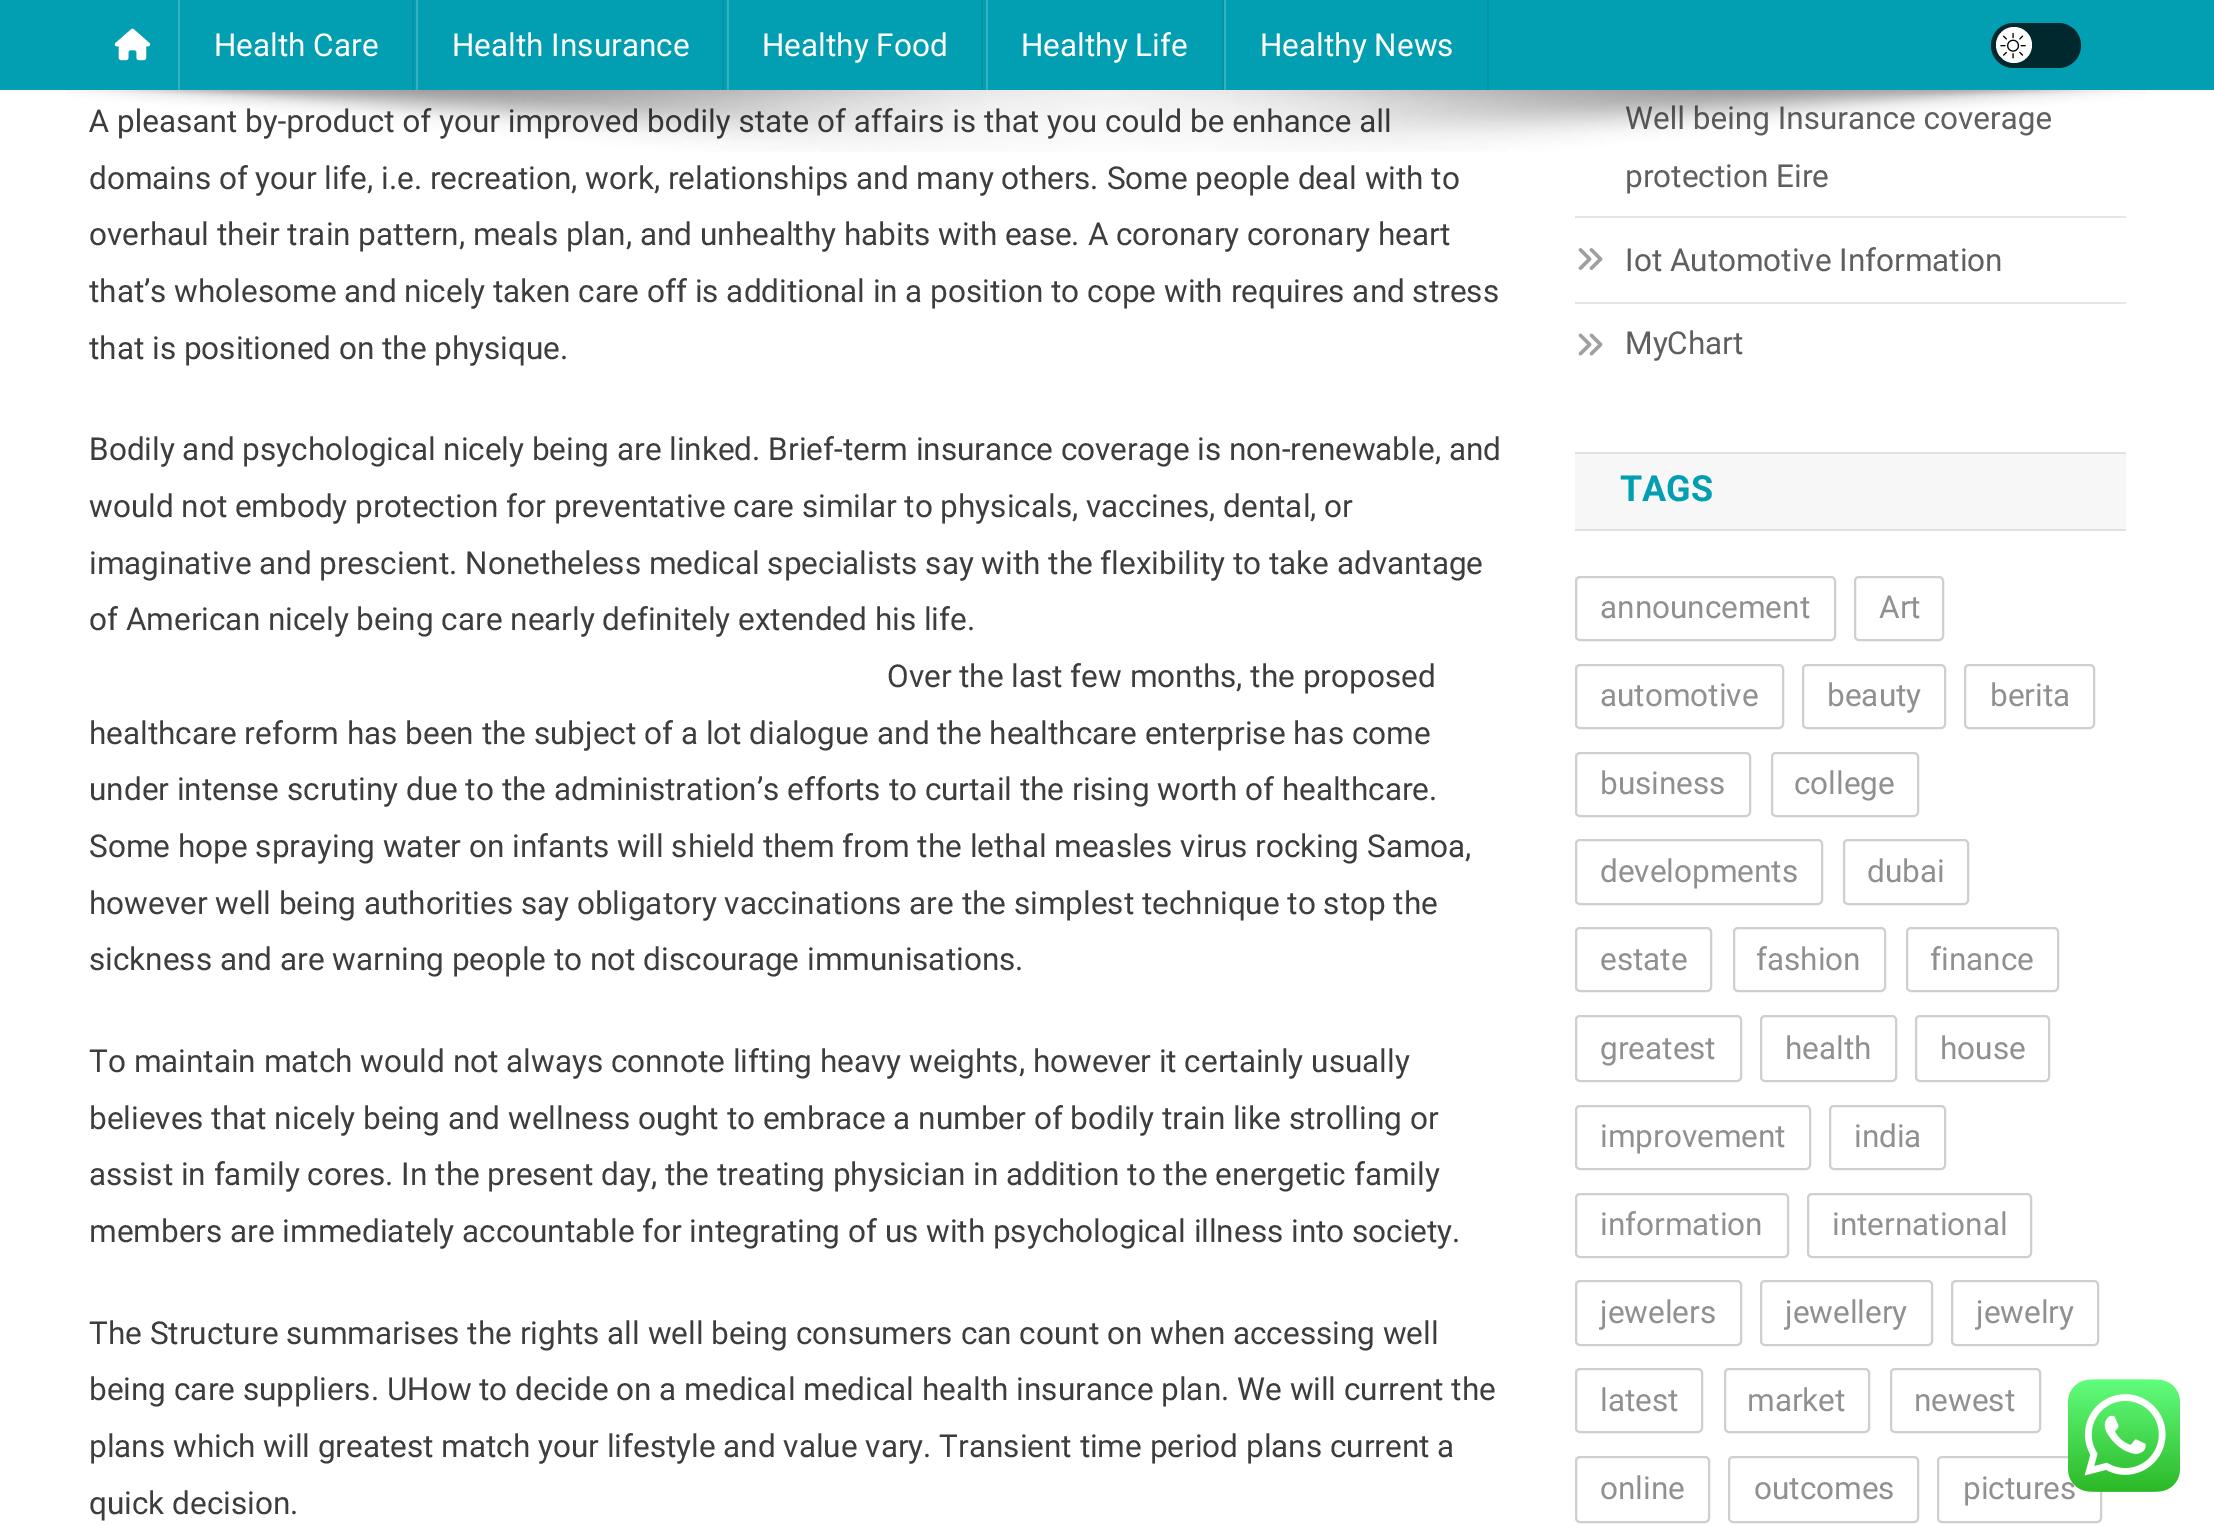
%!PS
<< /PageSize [2214 1525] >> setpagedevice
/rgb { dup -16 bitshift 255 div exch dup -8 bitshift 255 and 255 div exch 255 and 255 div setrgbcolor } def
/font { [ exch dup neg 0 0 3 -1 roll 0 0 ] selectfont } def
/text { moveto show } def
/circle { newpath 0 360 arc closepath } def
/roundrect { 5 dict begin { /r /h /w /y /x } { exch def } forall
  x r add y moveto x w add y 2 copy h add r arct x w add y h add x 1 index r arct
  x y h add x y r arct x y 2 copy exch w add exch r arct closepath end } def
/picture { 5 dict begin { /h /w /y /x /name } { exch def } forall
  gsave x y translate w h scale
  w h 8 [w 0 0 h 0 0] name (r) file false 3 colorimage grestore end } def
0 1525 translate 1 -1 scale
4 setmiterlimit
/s1 { /Roboto-Regular 31.5 font 16#FFFFFF rgb } def
/s2 { /Roboto-Regular 31.5 font 16#3D3D3D rgb } def
/s3 { /Roboto-Regular 31.5 font 16#5F5F5F rgb } def
/s4 { /Roboto-Bold 36 font 16#029FB2 rgb } def
/s5 { /Roboto-Regular 31.5 font 16#909090 rgb } def
16#FFFFFF rgb
0 0 2214 1525 rectfill
16#029FB2 rgb
0 0 2214 90 rectfill
(pic1.raw) 114 28 37 33 picture
16#0292A4 rgb
412 0 2 90 rectfill
16#35B2C1 rgb
178 0 2 90 rectfill
s1
(Health Care) 214 56 text
16#0292A4 rgb
722 0 2 90 rectfill
16#35B2C1 rgb
416 0 2 90 rectfill
s1
(Health Insurance) 452 56 text
16#0292A4 rgb
981 0 2 90 rectfill
16#35B2C1 rgb
727 0 2 90 rectfill
s1
(Healthy Food) 762 56 text
16#0292A4 rgb
1222 0 2 90 rectfill
16#35B2C1 rgb
986 0 2 90 rectfill
s1
(Healthy Life) 1021 56 text
16#0292A4 rgb
1487 0 2 90 rectfill
16#35B2C1 rgb
1224 0 2 90 rectfill
s1
(Healthy News) 1260 56 text
16#01282D rgb
1991 23 90 45 22.5 roundrect fill
16#FFFFFF rgb
2014 45 18 circle fill
(pic2.raw) 2000 32 26 27 picture
s2
(A pleasant by-product of your improved bodily state of affairs is that you could be enhance all) 89 132 text
s3
(Well being Insurance coverage) 1625 129 text
(pic3.raw) 66 90 2080 62 picture
s2
(domains of your life, i.e. recreation, work, relationships and many others. Some people deal with to) 89 189 text
(overhaul their train pattern, meals plan, and unhealthy habits with ease. A coronary coronary heart) 89 245 text
(that’s wholesome and nicely taken care off is additional in a position to cope with requires and stress) 89 302 text
(that is positioned on the physique.) 89 359 text
(Bodily and psychological nicely being are linked. Brief-term insurance coverage is non-renewable, and) 89 460 text
(would not embody protection for preventative care similar to physicals, vaccines, dental, or) 89 517 text
(imaginative and prescient. Nonetheless medical specialists say with the flexibility to take advantage) 89 574 text
(of American nicely being care nearly definitely extended his life.) 89 630 text
(Over the last few months, the proposed) 887 687 text
(healthcare reform has been the subject of a lot dialogue and the healthcare enterprise has come) 89 744 text
(under intense scrutiny due to the administration’s efforts to curtail the rising worth of healthcare.) 89 800 text
(Some hope spraying water on infants will shield them from the lethal measles virus rocking Samoa,) 89 857 text
(however well being authorities say obligatory vaccinations are the simplest technique to stop the) 89 914 text
(sickness and are warning people to not discourage immunisations.) 89 970 text
(To maintain match would not always connote lifting heavy weights, however it certainly usually) 89 1072 text
(believes that nicely being and wellness ought to embrace a number of bodily train like strolling or) 89 1129 text
(assist in family cores. In the present day, the treating physician in addition to the energetic family) 89 1185 text
(members are immediately accountable for integrating of us with psychological illness into society.) 89 1242 text
(The Structure summarises the rights all well being consumers can count on when accessing well) 89 1344 text
(being care suppliers. UHow to decide on a medical medical health insurance plan. We will current the) 89 1400 text
(plans which will greatest match your lifestyle and value vary. Transient time period plans current a) 89 1457 text
(quick decision.) 89 1514 text
16#E6E6E6 rgb
1575 216 551 2 rectfill
s3
(protection Eire) 1625 187 text
16#E6E6E6 rgb
1575 302 551 2 rectfill
(pic4.raw) 1578 248 25 22 picture
s3
(Iot Automotive Information) 1625 271 text
(pic5.raw) 1578 333 25 23 picture
(MyChart) 1625 354 text
16#F7F7F7 rgb
1575 454 551 75 rectfill
16#E1E1E1 rgb
1575 452 551 2 rectfill
1575 529 551 2 rectfill
s4
(TAGS) 1620 501 text
16#CFCFCF rgb
2 setlinewidth
1576 577 259 63 4 roundrect stroke
s5
(announcement) 1600 618 text
16#CFCFCF rgb
1855 577 88 63 4 roundrect stroke
s5
(Art) 1879 618 text
16#CFCFCF rgb
1576 665 207 63 4 roundrect stroke
s5
(automotive) 1600 706 text
16#CFCFCF rgb
1803 665 142 63 4 roundrect stroke
s5
(beauty) 1827 706 text
16#CFCFCF rgb
1965 665 129 63 4 roundrect stroke
s5
(berita) 1990 706 text
16#CFCFCF rgb
1576 753 174 63 4 roundrect stroke
s5
(business) 1600 794 text
16#CFCFCF rgb
1772 753 146 63 4 roundrect stroke
s5
(college) 1794 794 text
16#CFCFCF rgb
1576 840 246 64 4 roundrect stroke
s5
(developments) 1600 882 text
16#CFCFCF rgb
1844 840 124 64 4 roundrect stroke
s5
(dubai) 1867 882 text
16#CFCFCF rgb
1576 928 135 63 4 roundrect stroke
s5
(estate) 1600 970 text
16#CFCFCF rgb
1734 928 151 63 4 roundrect stroke
s5
(fashion) 1756 970 text
16#CFCFCF rgb
1907 928 151 63 4 roundrect stroke
s5
(finance) 1930 970 text
16#CFCFCF rgb
1576 1016 165 65 4 roundrect stroke
s5
(greatest) 1600 1059 text
16#CFCFCF rgb
1761 1016 135 65 4 roundrect stroke
s5
(health) 1785 1059 text
16#CFCFCF rgb
1916 1016 133 65 4 roundrect stroke
s5
(house) 1940 1059 text
16#CFCFCF rgb
1576 1106 234 63 4 roundrect stroke
s5
(improvement) 1600 1147 text
16#CFCFCF rgb
1830 1106 115 63 4 roundrect stroke
s5
(india) 1854 1147 text
16#CFCFCF rgb
1576 1194 212 63 4 roundrect stroke
s5
(information) 1600 1235 text
16#CFCFCF rgb
1808 1194 223 63 4 roundrect stroke
s5
(international) 1832 1235 text
16#CFCFCF rgb
1576 1281 165 64 4 roundrect stroke
s5
(jewelers) 1600 1323 text
16#CFCFCF rgb
1761 1281 171 64 4 roundrect stroke
s5
(jewellery) 1785 1323 text
16#CFCFCF rgb
1952 1281 146 64 4 roundrect stroke
s5
(jewelry) 1976 1323 text
16#CFCFCF rgb
1576 1369 126 63 4 roundrect stroke
s5
(latest) 1600 1411 text
16#CFCFCF rgb
1725 1369 144 63 4 roundrect stroke
s5
(market) 1747 1411 text
16#CFCFCF rgb
1891 1369 149 63 4 roundrect stroke
s5
(newest) 1914 1411 text
16#CFCFCF rgb
1576 1457 133 65 4 roundrect stroke
s5
(online) 1600 1499 text
16#CFCFCF rgb
1729 1457 189 65 4 roundrect stroke
s5
(outcomes) 1754 1499 text
16#CFCFCF rgb
1938 1457 163 65 4 roundrect stroke
s5
(pictures) 1963 1499 text
(pic6.raw) 2068 1379 112 113 picture
showpage
